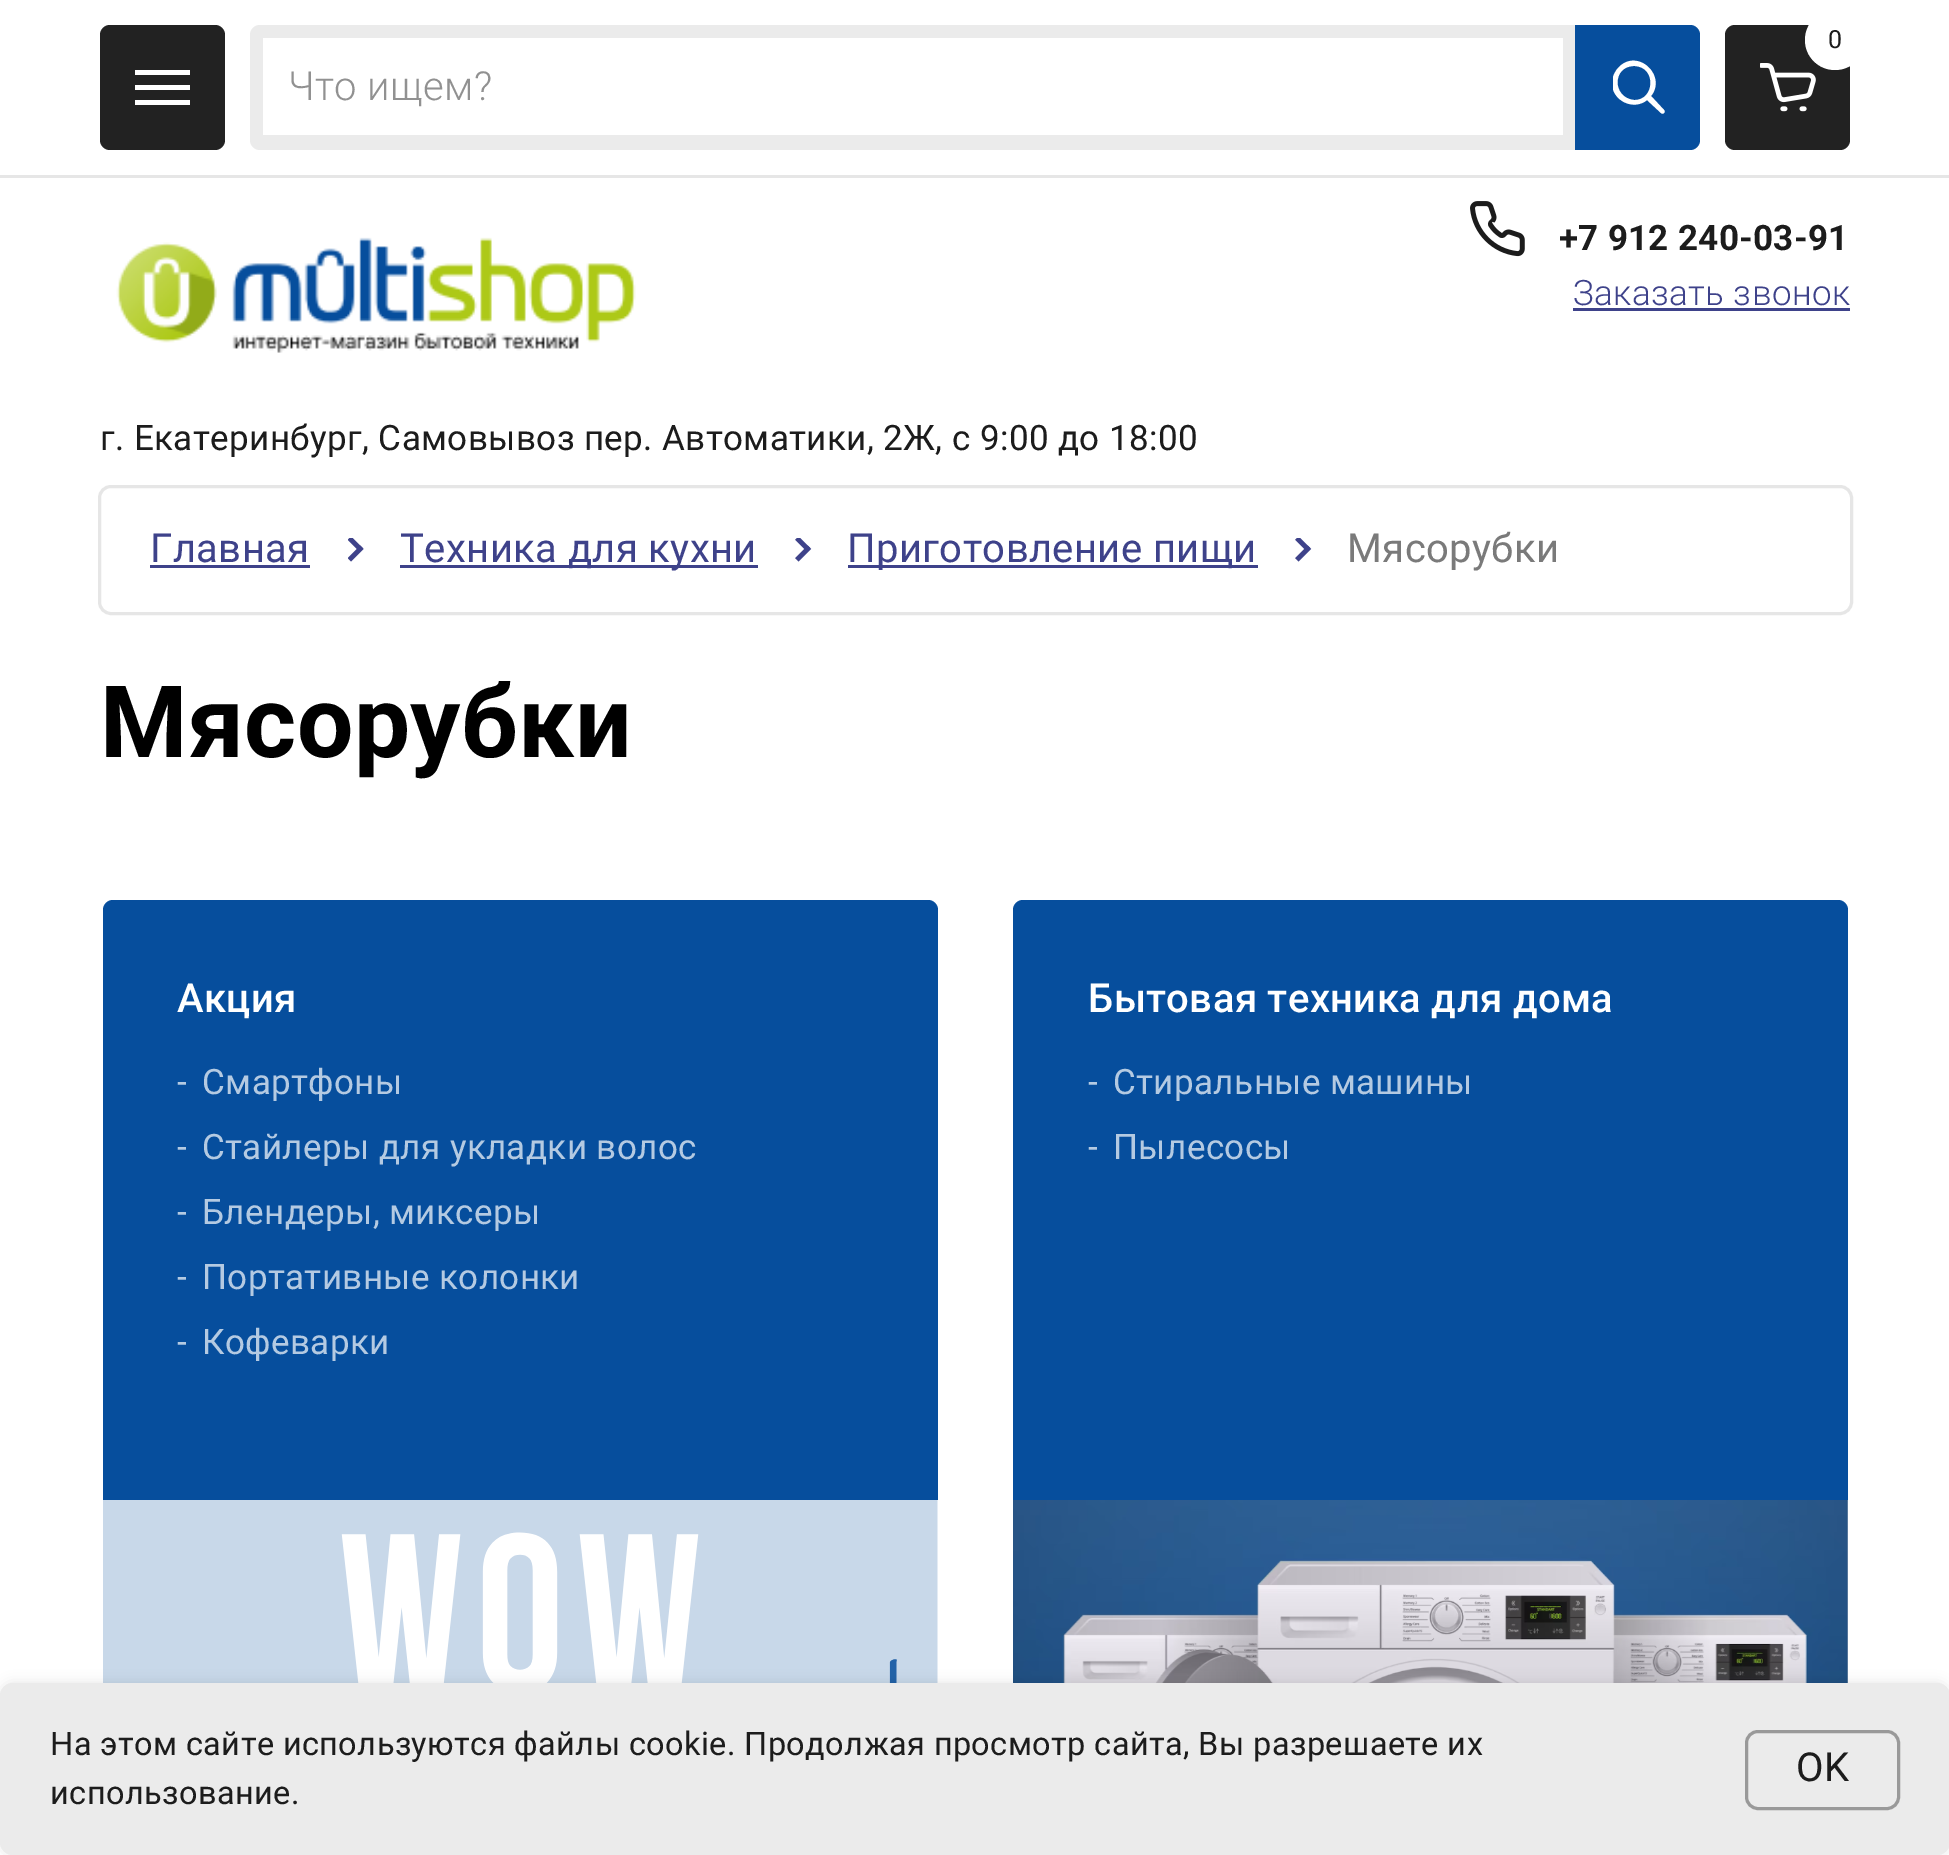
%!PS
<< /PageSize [1949 1855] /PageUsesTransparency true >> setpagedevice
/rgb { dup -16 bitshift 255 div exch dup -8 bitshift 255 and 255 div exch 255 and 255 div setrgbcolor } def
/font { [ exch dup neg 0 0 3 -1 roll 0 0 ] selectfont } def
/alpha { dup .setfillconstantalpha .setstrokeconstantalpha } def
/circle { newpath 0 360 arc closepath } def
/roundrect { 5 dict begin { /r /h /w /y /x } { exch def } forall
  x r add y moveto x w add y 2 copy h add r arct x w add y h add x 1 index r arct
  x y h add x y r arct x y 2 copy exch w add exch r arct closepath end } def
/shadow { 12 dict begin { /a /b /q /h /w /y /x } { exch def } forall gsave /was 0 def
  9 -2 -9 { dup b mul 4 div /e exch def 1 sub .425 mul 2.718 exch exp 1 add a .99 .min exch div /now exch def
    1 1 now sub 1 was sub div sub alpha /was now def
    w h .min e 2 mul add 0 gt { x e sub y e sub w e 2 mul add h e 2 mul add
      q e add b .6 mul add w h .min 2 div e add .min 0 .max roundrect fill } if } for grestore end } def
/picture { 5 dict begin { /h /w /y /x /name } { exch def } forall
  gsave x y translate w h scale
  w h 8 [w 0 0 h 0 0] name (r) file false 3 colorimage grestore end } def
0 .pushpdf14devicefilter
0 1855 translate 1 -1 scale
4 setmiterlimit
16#FFFFFF rgb
0 0 1949 1855 rectfill
16#222222 rgb
100 25 125 125 10 roundrect fill
16#FFFFFF rgb
135 70 moveto 190 70 lineto 190 75 lineto 135 75 lineto closepath 135 85 moveto 190 85 lineto 190 90 lineto 135 90 lineto closepath 135 100 moveto 190 100 lineto 190 105 lineto 135 105 lineto closepath fill
16#222222 rgb
1725 25 125 125 10 roundrect fill
16#FFFFFF rgb
1835 40 30 circle fill
/Roboto-Regular 25 font
16#1C1C1C rgb
1828 48 moveto 0.4 0 (0) ashow
(pic1.raw) 1760 63 56 49 picture
16#EBEBEB rgb
250 25 1450 125 10 roundrect fill
16#FFFFFF rgb
263 38 1300 97 rectfill
/Roboto-Light 40 font
16#919191 rgb
288 100 moveto 0.4 0 (Что ищем?) ashow
16#064E9D rgb
1575 25 moveto 1690 25 lineto 1695.5 25 1700 29.5 1700 35 curveto 1700 140 lineto 1700 145.5 1695.5 150 1690 150 curveto 1575 150 lineto closepath fill
gsave
1613 60 52 55 rectclip
16#FFFFFF rgb
1634 66 moveto 1612 66 1612 98 1634 100 curveto 1655 101 1657 66 1634 66 curveto closepath 1612 83 moveto 1612 77 1615 71 1619 67 curveto 1638 48 1667 76 1651 96 curveto 1664 110 lineto 1665 111 1665 112 1664 113 curveto 1663 114 1662 114 1661 113 curveto 1647 100 lineto 1634 111 1612 101 1612 83 curveto closepath eofill
grestore
16#E6E6E6 rgb
0 175 1949 3 rectfill
(pic2.raw) 116 237 520 116 picture
(pic3.raw) 1470 201 55 56 picture
/Roboto-Bold 35 font
16#1C1C1C rgb
1559 250 moveto 0.3 0 (+7 912 240-03-91) ashow
/Roboto-Light 35 font
16#3E428A rgb
1573 305 moveto 0.4 0 (Заказать звонок) ashow
1573 308 277 3 rectfill
/Roboto-Regular 35 font
16#1C1C1C rgb
100 450 moveto 0.4 0 (г. Екатеринбург, Самовывоз пер. Автоматики, 2Ж, с 9:00 до 18:00) ashow
16#E6E6E6 rgb
3 setlinewidth
99.5 486.5 1752 127 11.5 roundrect stroke
/Roboto-Regular 40 font
16#3E428A rgb
150 562 moveto 0.4 0 (Главная) ashow
150 565 160 3 rectfill
(pic4.raw) 348 538 16 24 picture
400 565 358 3 rectfill
400 562 moveto 0.4 0 (Техника для кухни) ashow
(pic5.raw) 795 538 17 24 picture
848 565 410 3 rectfill
847 562 moveto 0.4 0 (Приготовление пищи) ashow
(pic5.raw) 1295 538 17 24 picture
16#7A7A7A rgb
1347 562 moveto 0.4 0 (Мясорубки) ashow
/Roboto-Bold 100 font
16#000000 rgb
100 757 moveto 0.4 0 (Мясорубки) ashow
16#064E9D rgb
113 900 moveto 928 900 lineto 933.5 900 938 904.5 938 910 curveto 938 1500 lineto 103 1500 lineto 103 910 lineto 103 904.5 107.5 900 113 900 curveto closepath fill
/Roboto-Medium 40 font
16#FFFFFF rgb
177 1012 moveto 0.4 0 (Акция) ashow
/Roboto-Regular 35 font
16#B4CAE2 rgb
177 1094 moveto 0.4 0 (-) ashow
202 1094 moveto 0.4 0 (Смартфоны) ashow
177 1159 moveto 0.4 0 (-) ashow
202 1159 moveto 0.4 0 (Стайлеры для укладки волос) ashow
177 1224 moveto 0.4 0 (-) ashow
202 1224 moveto 0.4 0 (Блендеры, миксеры) ashow
177 1289 moveto 0.4 0 (-) ashow
202 1289 moveto 0.4 0 (Портативные колонки) ashow
177 1354 moveto 0.4 0 (-) ashow
202 1354 moveto 0.4 0 (Кофеварки) ashow
(pic6.raw) 103 1500 835 183 picture
16#064E9D rgb
1023 900 moveto 1838 900 lineto 1843.5 900 1848 904.5 1848 910 curveto 1848 1500 lineto 1013 1500 lineto 1013 910 lineto 1013 904.5 1017.5 900 1023 900 curveto closepath fill
/Roboto-Medium 40 font
16#FFFFFF rgb
1088 1012 moveto 0.4 0 (Бытовая техника для дома) ashow
/Roboto-Regular 35 font
16#B4CAE2 rgb
1088 1094 moveto 0.4 0 (-) ashow
1113 1094 moveto 0.4 0 (Стиральные машины) ashow
1088 1159 moveto 0.4 0 (-) ashow
1113 1159 moveto 0.4 0 (Пылесосы) ashow
(pic7.raw) 1013 1500 835 183 picture
16#000000 rgb
0 1683 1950 172 13 6 0.1 shadow
16#EBEBEB rgb
0 1683 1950 172 13 roundrect fill
/Roboto-Regular 32.5 font
16#1C1C1C rgb
50 1755 moveto 0.4 0 (На этом сайте используются файлы cookie. Продолжая просмотр сайта, Вы разрешаете их) ashow
50 1804 moveto 0.4 0 (использование.) ashow
16#999999 rgb
1746.5 1731.5 152 77 11.5 roundrect stroke
/Roboto-Regular 40 font
16#1C1C1C rgb
1796 1781 moveto 0.4 0 (OK) ashow
.poppdf14devicefilter showpage
